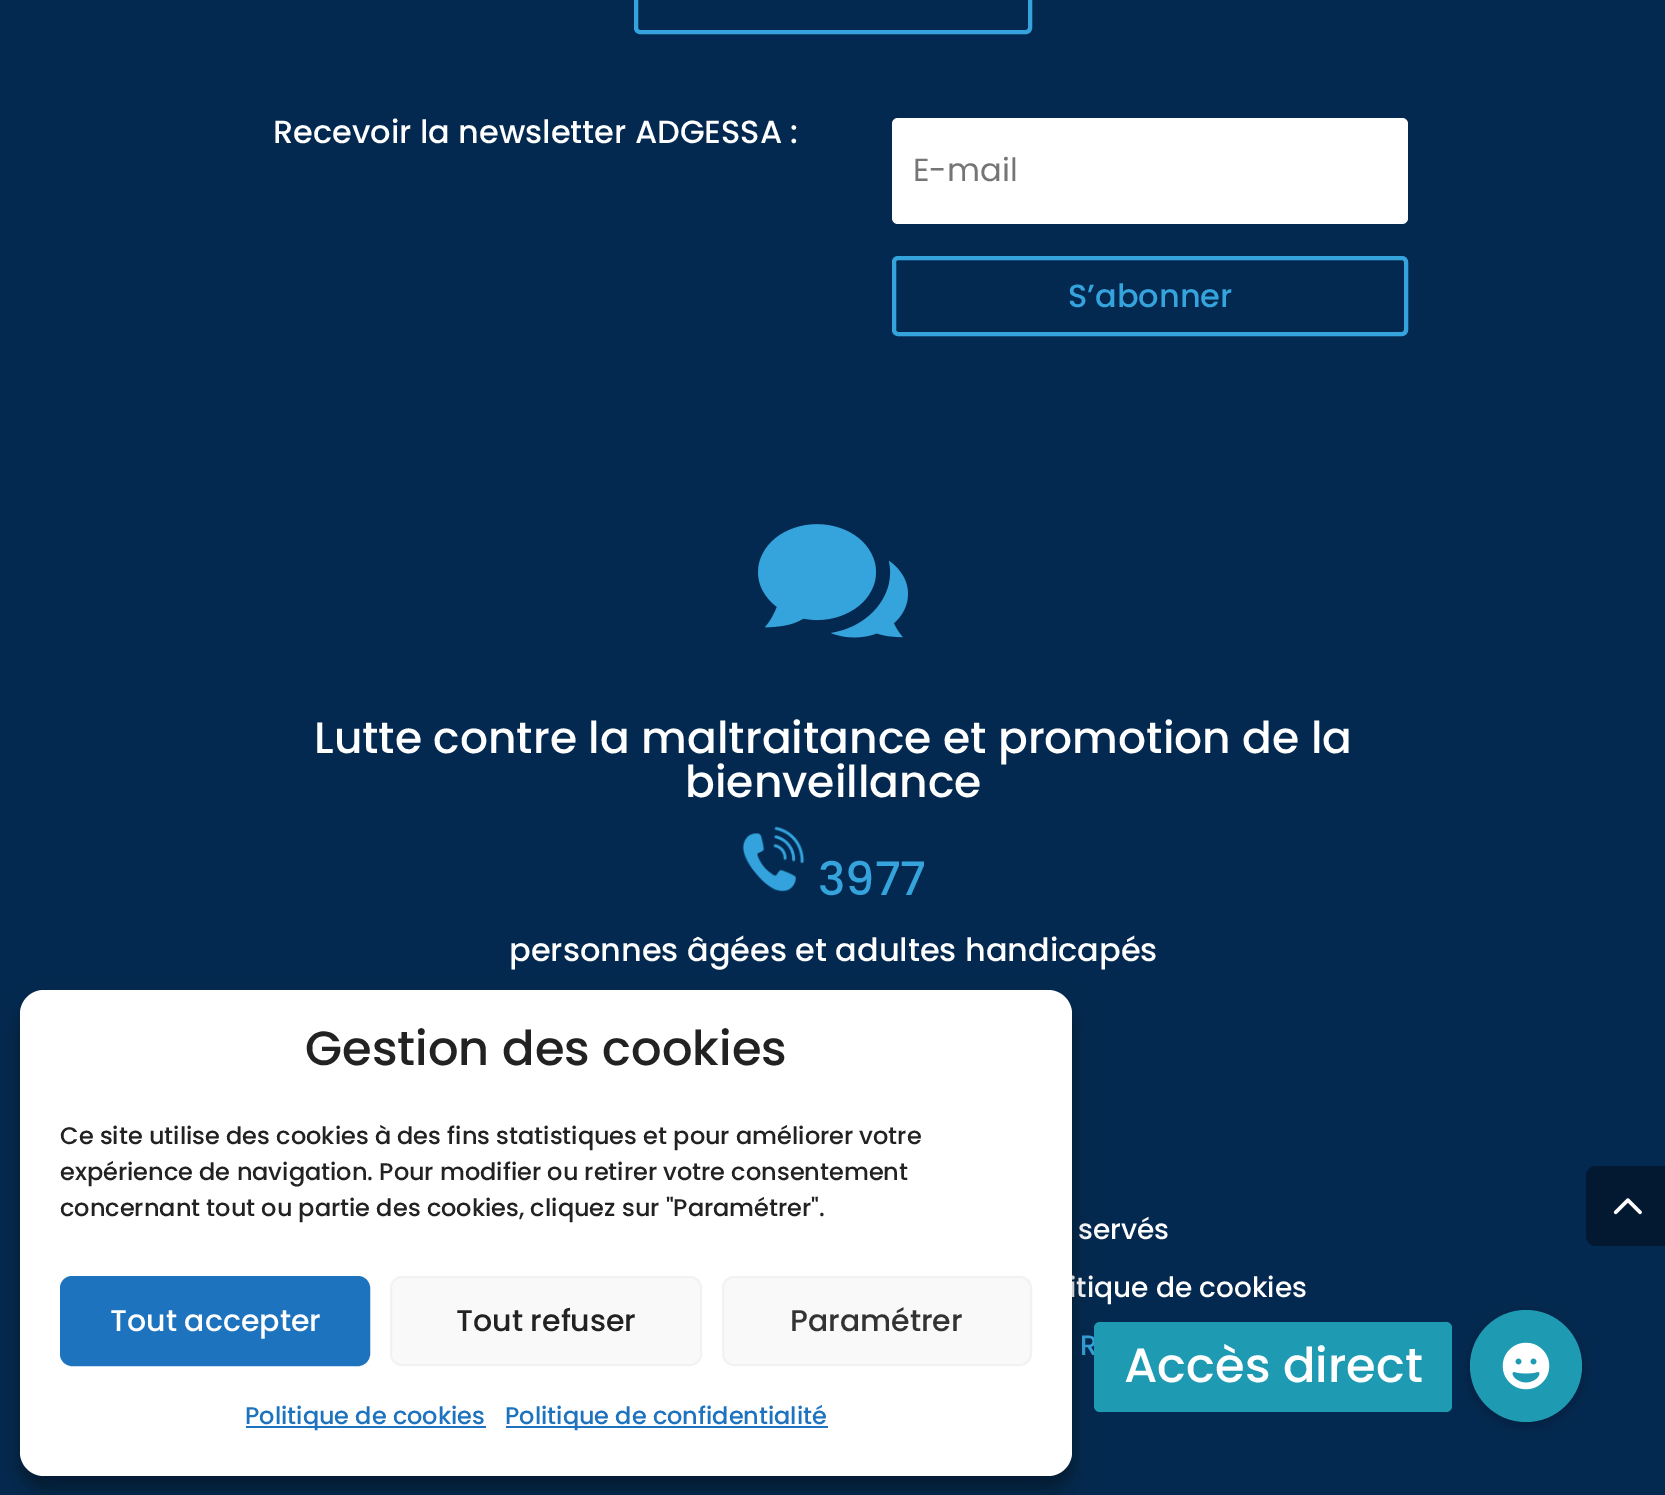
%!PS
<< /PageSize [1665 1495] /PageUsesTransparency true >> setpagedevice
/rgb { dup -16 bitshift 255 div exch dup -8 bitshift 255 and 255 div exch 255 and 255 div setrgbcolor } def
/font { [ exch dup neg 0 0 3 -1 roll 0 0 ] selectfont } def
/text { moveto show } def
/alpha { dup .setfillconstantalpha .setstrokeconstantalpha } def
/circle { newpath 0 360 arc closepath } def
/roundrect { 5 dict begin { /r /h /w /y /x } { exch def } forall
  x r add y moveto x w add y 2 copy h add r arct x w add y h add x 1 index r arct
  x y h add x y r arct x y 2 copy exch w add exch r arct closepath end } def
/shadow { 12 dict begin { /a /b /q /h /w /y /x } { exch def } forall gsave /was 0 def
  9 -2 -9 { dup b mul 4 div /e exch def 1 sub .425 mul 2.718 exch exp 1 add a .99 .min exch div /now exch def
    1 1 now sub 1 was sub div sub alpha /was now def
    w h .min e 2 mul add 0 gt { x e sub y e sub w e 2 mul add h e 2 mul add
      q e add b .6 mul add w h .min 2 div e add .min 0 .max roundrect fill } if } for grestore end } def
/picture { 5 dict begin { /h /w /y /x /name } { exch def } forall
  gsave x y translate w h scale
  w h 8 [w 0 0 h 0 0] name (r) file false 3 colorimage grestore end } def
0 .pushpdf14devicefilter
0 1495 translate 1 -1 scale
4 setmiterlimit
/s1 { /Poppins-Medium 32 font 16#FFFFFF rgb } def
/s2 { /Poppins-Regular 32 font 16#757575 rgb } def
/s3 { /Poppins-Medium 32 font 16#35A3DC rgb } def
/s4 { /Poppins-Medium 44 font 16#FFFFFF rgb } def
/s5 { /Poppins-Medium 46 font 16#35A3DC rgb } def
/s6 { /Poppins-Medium 28 font 16#FFFFFF rgb } def
/s7 { /Poppins-Medium 28 font 16#35A3DC rgb } def
/s8 { /Poppins-Medium 48 font 16#222222 rgb } def
/s9 { /Poppins-Medium 24 font 16#222222 rgb } def
/s10 { /Poppins-Medium 30 font 16#FFFFFF rgb } def
/s11 { /Poppins-Medium 30 font 16#222222 rgb } def
/s12 { /Poppins-Medium 30 font 16#333333 rgb } def
/s13 { /Poppins-Medium 24 font 16#1E73BE rgb } def
/s14 { /Poppins-Medium 48 font 16#FFFFFF rgb } def
16#042951 rgb
0 0 1665 1495 rectfill
16#35A3DC rgb
4 setlinewidth
636 -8 394 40 4 roundrect stroke
s1
(Recevoir la newsletter ADGESSA :) 273 143 text
892 118 516 106 6 roundrect fill
s2
(E-mail) 913 181 text
16#35A3DC rgb
894 258 512 76 4 roundrect stroke
s3
(S’abonner) 1068 307 text
(pic1.raw) 758 524 150 114 picture
s4
(Lutte contre la maltraitance et promotion de la) 314 753 text
(bienveillance) 685 797 text
(pic2.raw) 742 826 63 66 picture
s5
(3977) 818 895 text
s1
(personnes âgées et adultes handicapés) 509 961 text
s6
(servés) 1078 1239 text
(itique de cookies) 1069 1297 text
s7
(R) 1080 1355 text
16#000000 rgb
20 1002 1052 486 24 6 0.23 shadow
20 1010 1052 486 24 20 0.19 shadow
16#FFFFFF rgb
20 990 1052 486 24 roundrect fill
s8
(Gestion des cookies) 305 1065 text
s9
(Ce site utilise des cookies à des fins statistiques et pour améliorer votre) 60 1144 text
(expérience de navigation. Pour modifier ou retirer votre consentement) 60 1180 text
(concernant tout ou partie des cookies, cliquez sur "Paramétrer".) 60 1216 text
16#1E73BE rgb
61 1277 308 88 11 roundrect gsave fill grestore
2 setlinewidth
stroke
s10
(Tout accepter) 110 1331 text
16#F9F9F9 rgb
391 1277 310 88 11 roundrect gsave fill grestore
16#F2F2F2 rgb
stroke
s11
(Tout refuser) 456 1331 text
16#F9F9F9 rgb
723 1277 308 88 11 roundrect gsave fill grestore
16#F2F2F2 rgb
stroke
s12
(Paramétrer) 790 1331 text
16#1E73BE rgb
246 1426 240 2 rectfill
s13
(Politique de cookies) 245 1424 text
506 1426 322 2 rectfill
(Politique de confidentialité) 505 1424 text
16#021931 rgb
1596 1166 moveto 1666 1166 lineto 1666 1246 lineto 1596 1246 lineto 1590.5 1246 1586 1241.5 1586 1236 curveto 1586 1176 lineto 1586 1170.5 1590.5 1166 1596 1166 curveto closepath fill
(pic3.raw) 1613 1198 29 17 picture
16#000000 rgb
1468 1312 116 116 58 6 0.2 shadow
16#1E9AB3 rgb
1526 1366 56 circle fill
1094 1322 358 90 6 roundrect fill
s14
(Accès direct) 1124 1382 text
(pic4.raw) 1502 1342 48 48 picture
.poppdf14devicefilter showpage
